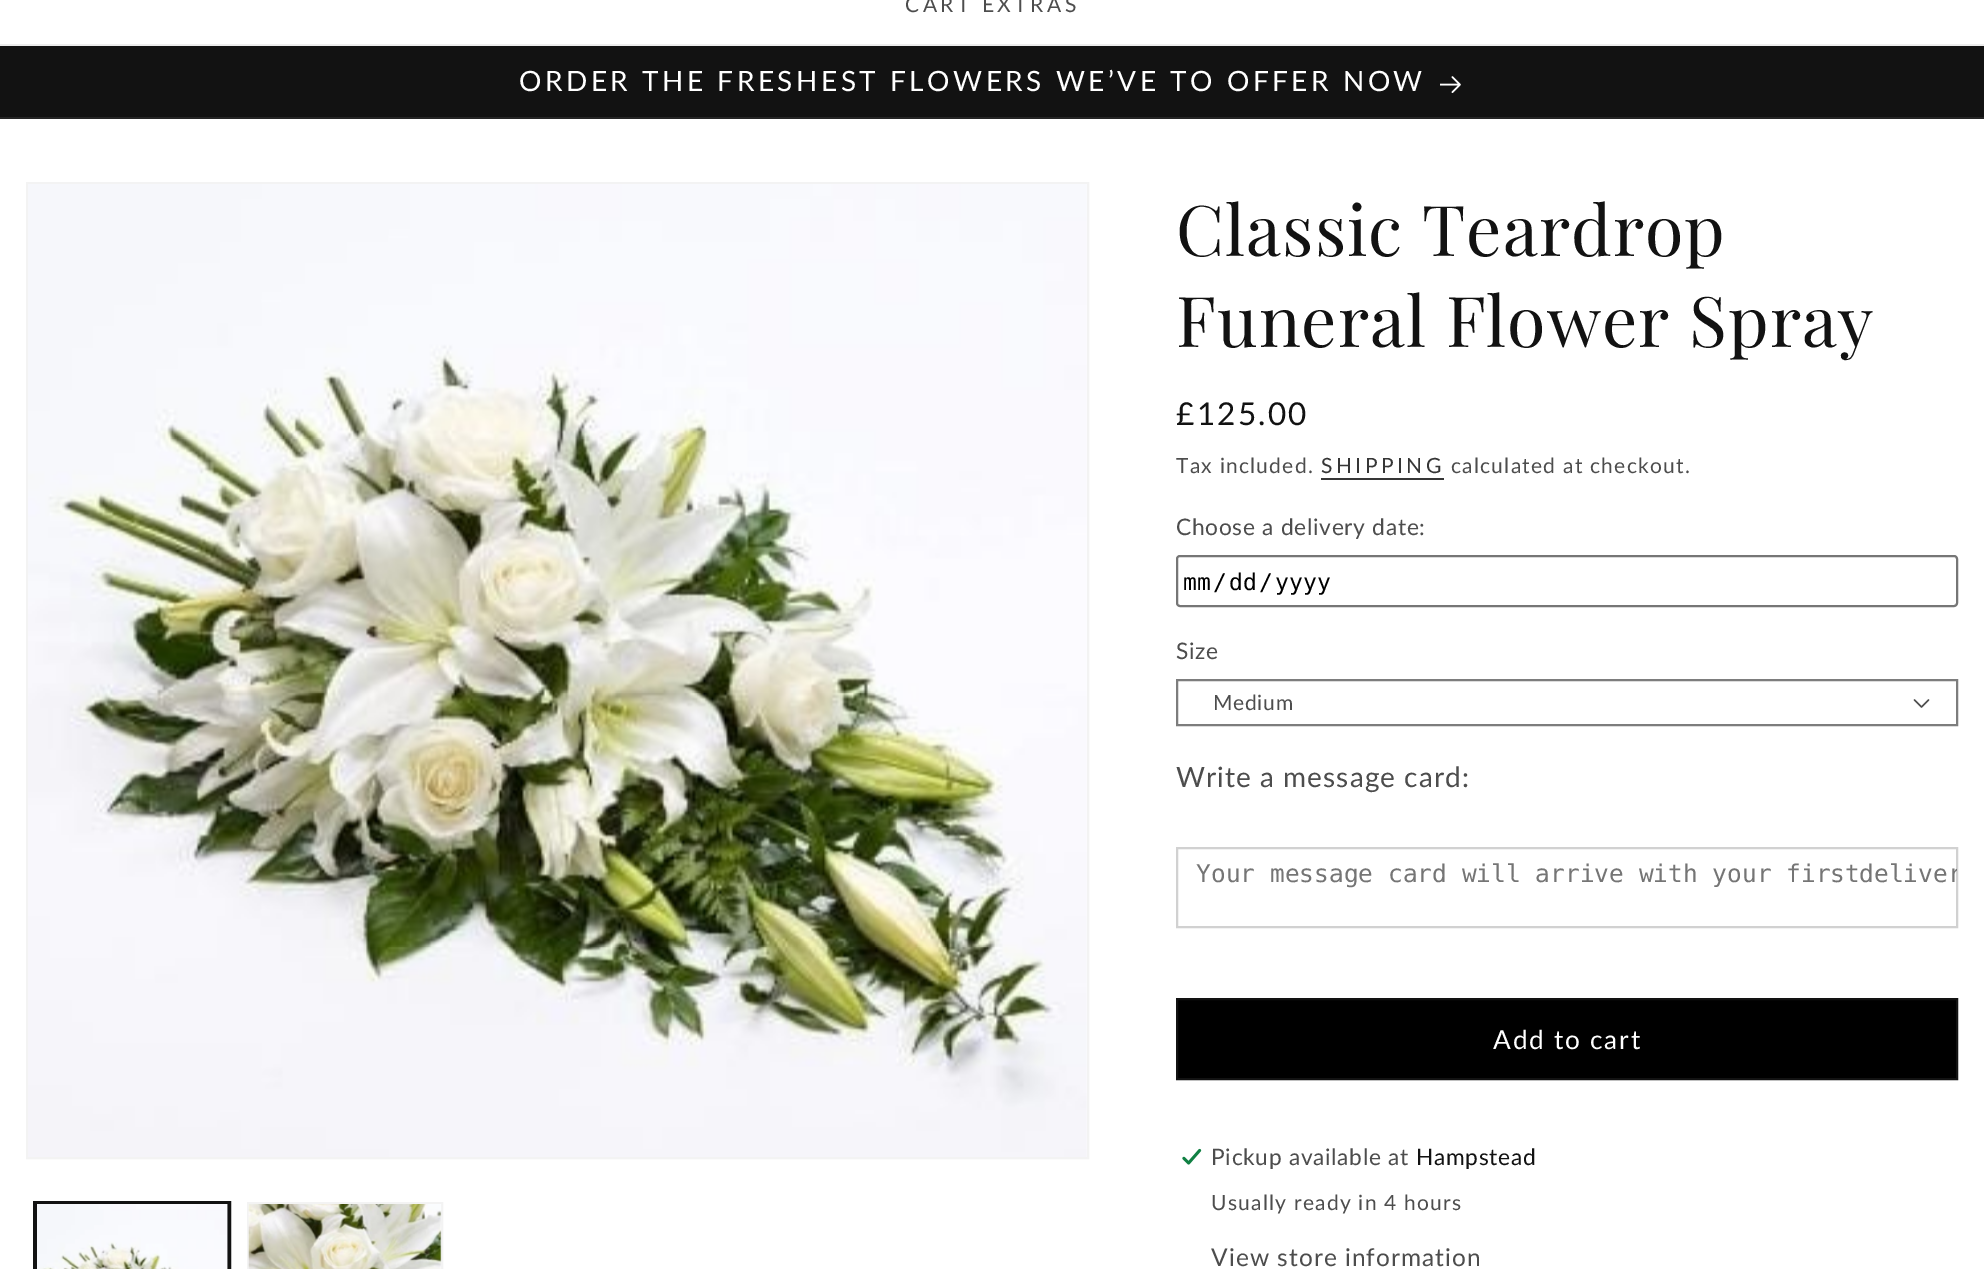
%!PS
<< /PageSize [1984 1269] >> setpagedevice
/rgb { dup -16 bitshift 255 div exch dup -8 bitshift 255 and 255 div exch 255 and 255 div setrgbcolor } def
/font { [ exch dup neg 0 0 3 -1 roll 0 0 ] selectfont } def
/text { moveto show } def
/roundrect { 5 dict begin { /r /h /w /y /x } { exch def } forall
  x r add y moveto x w add y 2 copy h add r arct x w add y h add x 1 index r arct
  x y h add x y r arct x y 2 copy exch w add exch r arct closepath end } def
/picture { 5 dict begin { /h /w /y /x /name } { exch def } forall
  gsave x y translate w h scale
  w h 8 [w 0 0 h 0 0] name (r) file false 3 colorimage grestore end } def
0 1269 translate 1 -1 scale
4 setmiterlimit
/s1 { /DejaVuSansMono-Regular 23 font 16#000000 rgb } def
/s2 { /DejaVuSansMono-Regular 24.5 font 16#757575 rgb } def
16#FFFFFF rgb
0 0 1984 1269 rectfill
16#ECECEC rgb
0 44 1984 2 rectfill
/Lato-Regular 21 font
16#4D4D4D rgb
905 12 moveto 3.5 0 (CART EXTRAS) ashow
16#121212 rgb
0 46 1984 71 rectfill
16#252525 rgb
0 117 1984 2 rectfill
/Lato-Regular 28 font
16#FFFFFF rgb
519 91 moveto 3.5 0 (ORDER THE FRESHEST FLOWERS WE’VE TO OFFER NOW) ashow
(pic1.raw) 1440 76 21 17 picture
16#F3F3F3 rgb
2 setlinewidth
27 183 1061 975 rectstroke
(pic2.raw) 28 184 1059 973 picture
16#121212 rgb
34 1202 196 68 rectstroke
36 1203 192 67 rectstroke
(pic3.raw) 37 1204 191 65 picture
16#F3F3F3 rgb
248 1203 194 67 rectstroke
(pic4.raw) 248 1204 194 65 picture
/PlayfairDisplay-Regular 70 font
16#121212 rgb
1176 256 moveto 1.05 0 (Classic Teardrop) ashow
1176 347 moveto 1.05 0 (Funeral Flower Spray) ashow
/Lato-Regular 31.5 font
1176 425 moveto 2.25 0 (£125.00) ashow
/Lato-Regular 21 font
16#4D4D4D rgb
1176 473 moveto 1.25 0 (Tax included.) ashow
16#363636 rgb
1321 473 moveto 3.5 0 (SHIPPING) ashow
1321 478 123 2 rectfill
16#4D4D4D rgb
1451 473 moveto 1.25 0 (calculated at checkout.) ashow
/Lato-Regular 22.75 font
1176 535 moveto 0.7 0 (Choose a delivery date:) ashow
16#767676 rgb
1177 556 780 50 3 roundrect stroke
s1
(mm) 1183 590 text
(/) 1213 590 text
(dd) 1229 590 text
(/) 1259 590 text
(yyyy) 1275 590 text
/Lato-Regular 22.75 font
16#4D4D4D rgb
1176 659 moveto 0.7 0 (Size) ashow
(pic5.raw) 1913 699 17 9 picture
16#7D7D7D rgb
1177 680 780 45 rectstroke
/Lato-Regular 21 font
16#4D4D4D rgb
1213 710 moveto 0.7 0 (Medium) ashow
/Lato-Regular 28 font
1176 787 moveto 1.05 0 (Write a message card:) ashow
16#D1D1D1 rgb
1177 848 780 79 rectstroke
s2
(Your message card will arrive with your first) 1196 882 text
gsave
1178 849 779 77 rectclip
(deliver) 1859 882 text
grestore
16#000000 rgb
1178 1000 778 78 rectfill
16#121212 rgb
1177 999 780 80 rectstroke
/Lato-Regular 26.25 font
16#FFFFFF rgb
1493 1049 moveto 1.75 0 (Add to cart) ashow
(pic6.raw) 1182 1148 20 17 picture
/Lato-Regular 22.75 font
16#4D4D4D rgb
1211 1165 moveto 0.7 0 (Pickup available at) ashow
16#121212 rgb
1416 1165 moveto 0.7 0 (Hampstead) ashow
/Lato-Regular 21 font
16#4D4D4D rgb
1211 1210 moveto 1.25 0 (Usually ready in 4 hours) ashow
/Lato-Regular 24.5 font
1211 1266 moveto 1.05 0 (View store information) ashow
showpage
